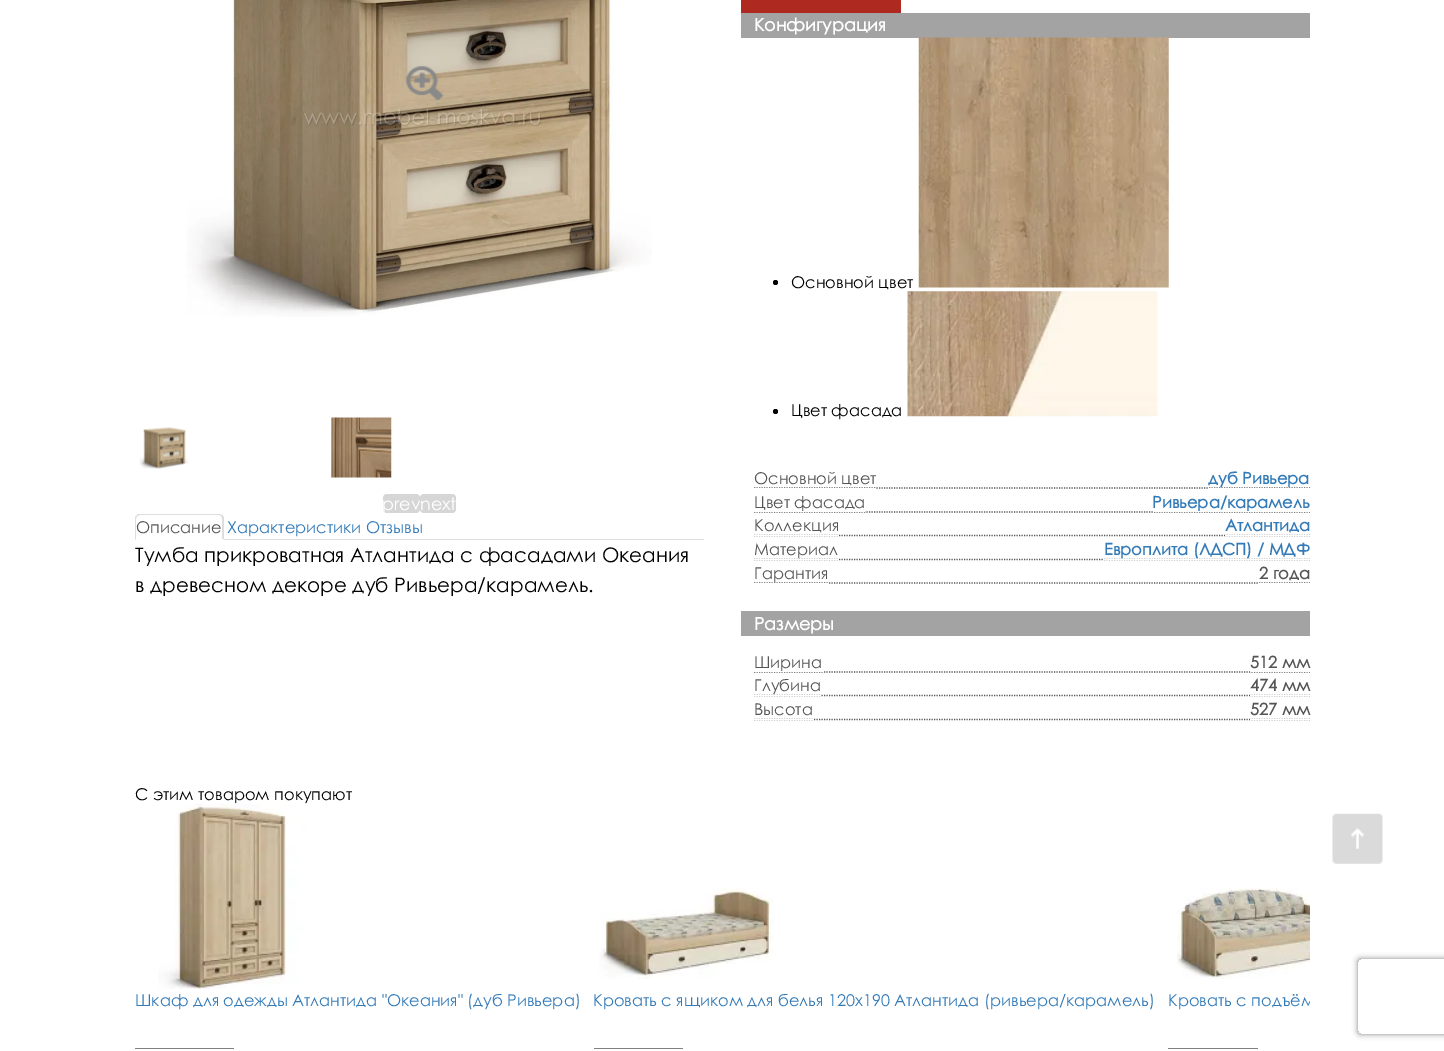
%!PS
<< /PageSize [1444 1051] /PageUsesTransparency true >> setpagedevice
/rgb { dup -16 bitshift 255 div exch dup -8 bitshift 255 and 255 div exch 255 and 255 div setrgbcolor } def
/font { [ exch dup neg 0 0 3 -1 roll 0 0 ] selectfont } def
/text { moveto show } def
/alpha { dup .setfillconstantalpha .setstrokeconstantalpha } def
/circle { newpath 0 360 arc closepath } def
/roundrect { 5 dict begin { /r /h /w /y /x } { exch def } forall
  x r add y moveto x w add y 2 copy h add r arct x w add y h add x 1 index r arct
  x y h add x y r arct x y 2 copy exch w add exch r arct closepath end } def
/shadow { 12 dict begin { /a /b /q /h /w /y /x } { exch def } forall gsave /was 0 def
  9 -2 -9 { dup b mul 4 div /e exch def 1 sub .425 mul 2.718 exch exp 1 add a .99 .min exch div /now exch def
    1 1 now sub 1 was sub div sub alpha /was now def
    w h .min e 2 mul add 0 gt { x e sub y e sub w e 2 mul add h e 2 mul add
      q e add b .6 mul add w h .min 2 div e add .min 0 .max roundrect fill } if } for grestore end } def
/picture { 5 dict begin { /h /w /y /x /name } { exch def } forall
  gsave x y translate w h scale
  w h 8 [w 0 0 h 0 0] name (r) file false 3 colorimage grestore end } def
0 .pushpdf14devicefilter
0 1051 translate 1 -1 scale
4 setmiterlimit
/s1 { /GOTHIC-Regular 17.5 font 16#FFFFFF rgb } def
/s2 { /GOTHIC-Regular 16.25 font 16#555555 rgb } def
/s3 { /GOTHIC-Regular 16.25 font 16#337AB7 rgb } def
/s4 { /GOTHIC-Regular 20 font 16#000000 rgb } def
/s5 { /GOTHIC-Bold 17.5 font 16#FFFFFF rgb } def
/s6 { /GOTHIC-Regular 16.25 font 16#000000 rgb } def
/s7 { /GOTHIC-Bold 16.25 font 16#337AB7 rgb } def
/s8 { /GOTHIC-Bold 16.25 font 16#555555 rgb } def
16#FFFFFF rgb
0 0 1444 1051 rectfill
(pic1.raw) 186 0 466 317 picture
(pic2.raw) 406 66 38 34 picture
(pic3.raw) 139 427 50 42 picture
(pic4.raw) 331 417 61 61 picture
16#D6D6D6 rgb
383 494 37 19 4 roundrect fill
s1
(prev) 382 510 text
16#D6D6D6 rgb
420 494 36 19 4 roundrect fill
s1
(next) 420 510 text
16#DDDDDD rgb
224 539 480 1 rectfill
140 514 moveto 139 514 137 514 137 515 curveto 137 516 lineto 140 515 lineto 219 515 lineto 221 516 lineto 222 515 lineto 219 514 lineto closepath fill
222.5 515 moveto 224 517.5 lineto 224 540 lineto 222 538 lineto 222 519 lineto 222 518 222 517 221 516 curveto closepath fill
135 540 moveto 136 539 lineto 136 519 lineto 136 518 136.5 517 137.5 516 curveto 136.5 515.5 lineto 135.5 516 135 517.5 135 519 curveto closepath fill
s2
(Описание) 136 533 text
s3
(Характеристики) 227 533 text
(Отзывы) 366 533 text
s4
(Тумба прикроватная Атлантида с фасадами Океания) 135 562 text
(в древесном декоре дуб Ривьера/карамель.) 135 592 text
16#AE2A21 rgb
741 0 160 13 rectfill
16#A3A3A3 rgb
741 13 569 25 rectfill
s5
(Конфигурация) 754 31 text
16#000000 rgb
775.5 282.5 2.5 circle fill
s6
(Основной цвет) 791 288 text
(pic5.raw) 918 37 251 251 picture
775.5 411.5 2.5 circle fill
(Цвет фасада) 791 416 text
(pic6.raw) 907 291 251 126 picture
16#545454 rgb
1.2 setlinewidth
[1.25 1.25] 0 setdash
754 488 moveto 1310 488 lineto stroke
s2
(Основной цвет) 754 484 text
16#FFFFFF rgb
754 488 122 1 rectfill
s7
(дуб Ривьера) 1208 484 text
16#FFFFFF rgb
1209 488 101 1 rectfill
16#545454 rgb
754 512 moveto 1310 512 lineto stroke
s2
(Цвет фасада) 754 508 text
16#FFFFFF rgb
754 511 111 1 rectfill
s7
(Ривьера/карамель) 1152 508 text
16#FFFFFF rgb
1153 511 157 1 rectfill
16#545454 rgb
754 535.5 moveto 1310 535.5 lineto stroke
s2
(Коллекция) 754 531 text
16#FFFFFF rgb
754 535 85 1 rectfill
s7
(Атлантида) 1225 531 text
16#FFFFFF rgb
1225 535 85 1 rectfill
16#545454 rgb
754 559.5 moveto 1310 559.5 lineto stroke
s2
(Материал) 754 555 text
16#FFFFFF rgb
754 559 84 1 rectfill
s7
(Европлита \(ЛДСП\) / МДФ) 1104 555 text
16#FFFFFF rgb
1104 559 206 1 rectfill
16#545454 rgb
754 583 moveto 1310 583 lineto stroke
s2
(Гарантия) 754 579 text
16#FFFFFF rgb
754 583 74 1 rectfill
s8
(2 года) 1259 579 text
16#FFFFFF rgb
1259 583 51 1 rectfill
16#A3A3A3 rgb
741 611 569 25 rectfill
s5
(Размеры) 754 630 text
16#545454 rgb
754 672 moveto 1310 672 lineto stroke
s2
(Ширина) 754 668 text
16#FFFFFF rgb
754 671 69 1 rectfill
s8
(512 мм) 1250 668 text
16#FFFFFF rgb
1250 671 60 1 rectfill
16#545454 rgb
754 695.5 moveto 1310 695.5 lineto stroke
s2
(Глубина) 754 691 text
16#FFFFFF rgb
754 695 67 1 rectfill
s8
(474 мм) 1250 691 text
16#FFFFFF rgb
1250 695 60 1 rectfill
16#545454 rgb
754 719.5 moveto 1310 719.5 lineto stroke
s2
(Высота) 754 715 text
16#FFFFFF rgb
754 719 59 1 rectfill
s8
(527 мм) 1250 715 text
16#FFFFFF rgb
1250 719 60 1 rectfill
s6
(С этим товаром покупают) 135 800 text
(pic7.raw) 158 803 148 186 picture
s3
(Шкаф для одежды Атлантида "Океания" \(дуб Ривьера\)) 135 1006 text
16#818181 rgb
135 1048 99 1 rectfill
(pic8.raw) 599 888 175 91 picture
s3
(Кровать с ящиком для белья 120х190 Атлантида \(ривьера/карамель\)) 593 1006 text
16#818181 rgb
594 1048 89 1 rectfill
(pic9.raw) 1177 888 133 91 picture
gsave
135 804 1175 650 rectclip
s3
(Кровать с подъём) 1168 1006 text
grestore
1168 1048 90 1 rectfill
(pic10.raw) 1332 813 51 51 picture
gsave
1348 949 moveto 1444 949 lineto 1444 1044 lineto 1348 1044 lineto closepath 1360.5 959 moveto 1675.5 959 lineto 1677 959 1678 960 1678 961.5 curveto 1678 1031.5 lineto 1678 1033 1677 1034 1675.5 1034 curveto 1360.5 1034 lineto 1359 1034 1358 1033 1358 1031.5 curveto 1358 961.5 lineto 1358 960 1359 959 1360.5 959 curveto closepath eoclip newpath
16#808080 rgb
1358 959 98 75 2.5 3 1 shadow
grestore
.poppdf14devicefilter showpage
